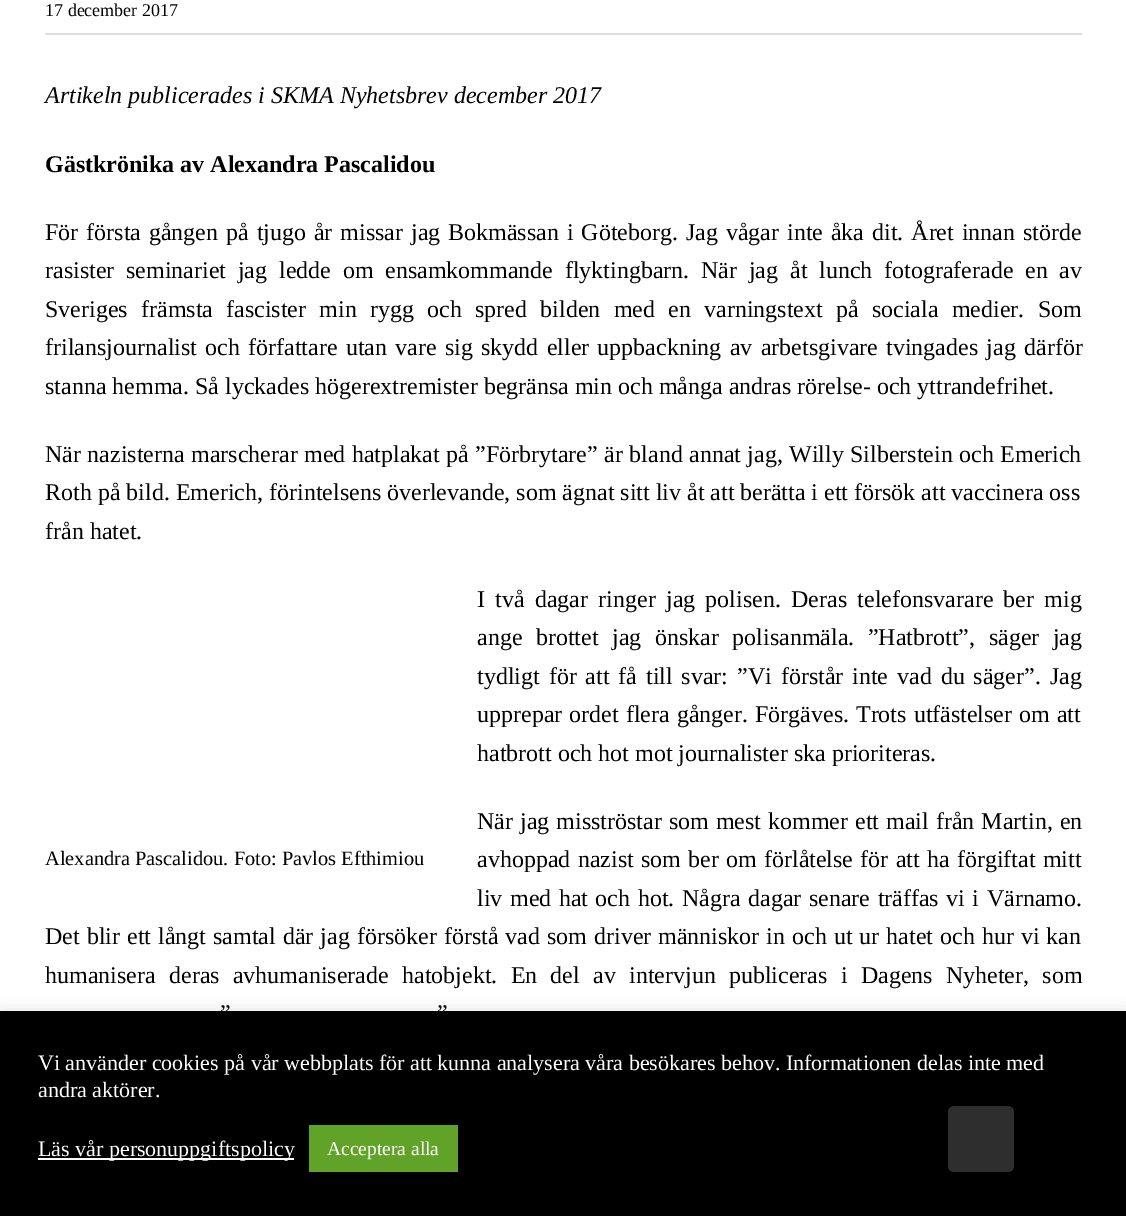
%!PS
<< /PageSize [1126 1216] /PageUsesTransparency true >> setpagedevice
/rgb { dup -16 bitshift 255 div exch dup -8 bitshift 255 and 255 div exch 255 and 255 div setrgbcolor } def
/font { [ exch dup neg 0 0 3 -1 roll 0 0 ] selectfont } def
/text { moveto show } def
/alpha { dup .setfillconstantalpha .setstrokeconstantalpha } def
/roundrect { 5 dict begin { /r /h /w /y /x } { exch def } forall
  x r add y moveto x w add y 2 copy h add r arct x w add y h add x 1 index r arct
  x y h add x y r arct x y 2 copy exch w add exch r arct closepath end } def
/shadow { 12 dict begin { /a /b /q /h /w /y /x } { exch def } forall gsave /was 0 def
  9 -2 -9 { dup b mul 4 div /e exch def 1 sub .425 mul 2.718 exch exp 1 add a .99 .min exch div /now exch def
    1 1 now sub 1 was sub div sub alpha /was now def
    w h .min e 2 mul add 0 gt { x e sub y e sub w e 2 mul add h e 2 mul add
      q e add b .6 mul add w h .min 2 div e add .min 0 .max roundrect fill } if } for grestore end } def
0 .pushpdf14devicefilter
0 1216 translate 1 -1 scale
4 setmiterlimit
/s1 { /LiberationSerif-Regular 18 font 16#000000 rgb } def
/s2 { /LiberationSerif-Italic 24 font 16#000000 rgb } def
/s3 { /LiberationSerif-Bold 24 font 16#000000 rgb } def
/s4 { /LiberationSerif-Regular 24 font 16#000000 rgb } def
/s5 { /LiberationSerif-Regular 20.4 font 16#000000 rgb } def
/s6 { /LiberationSerif-Regular 22 font 16#FFFFFF rgb } def
/s7 { /LiberationSerif-Regular 19.5 font 16#FFFFFF rgb } def
16#FFFFFF rgb
0 0 1126 1216 rectfill
16#E0DEDE rgb
45 33 1037 2 rectfill
s1
(17 december 2017) 45 16 text
s2
(Artikeln publicerades i SKMA Nyhetsbrev december 2017) 45 103 text
s3
(Gästkrönika av Alexandra Pascalidou) 45 172 text
/LiberationSerif-Regular 24 font
45 240 moveto 1.9 0 32 (För första gången på tjugo år missar jag Bokmässan i Göteborg. Jag vågar inte åka dit. Året innan störde) widthshow
45 278 moveto 5.75 0 32 (rasister seminariet jag ledde om ensamkommande flyktingbarn. När jag åt lunch fotograferade en av) widthshow
45 317 moveto 7.25 0 32 (Sveriges främsta fascister min rygg och spred bilden med en varningstext på sociala medier. Som) widthshow
45 355 moveto 2.25 0 32 (frilansjournalist och författare utan vare sig skydd eller uppbackning av arbetsgivare tvingades jag därför) widthshow
(stanna hemma. Så lyckades högerextremister begränsa min och många andras rörelse- och yttrandefrihet.) 45 394 text
45 462 moveto 0.4 0 32 (När nazisterna marscherar med hatplakat på ”Förbrytare” är bland annat jag, Willy Silberstein och Emerich) widthshow
(Roth på bild. Emerich, förintelsens överlevande, som ägnat sitt liv åt att berätta i ett försök att vaccinera oss) 45 500 text
(från hatet.) 45 539 text
477 607 moveto 4.25 0 32 (I två dagar ringer jag polisen. Deras telefonsvarare ber mig) widthshow
477 645 moveto 7.5 0 32 (ange brottet jag önskar polisanmäla. ”Hatbrott”, säger jag) widthshow
477 684 moveto 2.9 0 32 (tydligt för att få till svar: ”Vi förstår inte vad du säger”. Jag) widthshow
477 722 moveto 1 0 32 (upprepar ordet flera gånger. Förgäves. Trots utfästelser om att) widthshow
(hatbrott och hot mot journalister ska prioriteras.) 477 761 text
477 829 moveto 1 0 32 (När jag misströstar som mest kommer ett mail från Martin, en) widthshow
477 867 moveto 1.25 0 32 (avhoppad nazist som ber om förlåtelse för att ha förgiftat mitt) widthshow
477 906 moveto 1.5 0 32 (liv med hat och hot. Några dagar senare träffas vi i Värnamo.) widthshow
45 944 moveto 1 0 32 (Det blir ett långt samtal där jag försöker förstå vad som driver människor in och ut ur hatet och hur vi kan) widthshow
45 983 moveto 7.25 0 32 (humanisera deras avhumaniserade hatobjekt. En del av intervjun publiceras i Dagens Nyheter, som) widthshow
(”) 220 1021 text
(”) 437 1021 text
s5
(Alexandra Pascalidou. Foto: Pavlos Efthimiou) 45 865 text
16#ACABAB rgb
0 1010 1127 205 0 7.5 0.3 shadow
16#000000 rgb
0 1011 1126 205 rectfill
s6
(Vi använder cookies på vår webbplats för att kunna analysera våra besökares behov. Informationen delas inte med) 38 1070 text
(andra aktörer.) 38 1097 text
38 1158 256 2 rectfill
(Läs vår personuppgiftspolicy) 38 1156 text
16#61A229 rgb
309 1125 149 47 rectfill
s7
(Acceptera alla) 327 1155 text
16#2E2E2E rgb
948 1106 66 66 6 roundrect fill
.poppdf14devicefilter showpage
